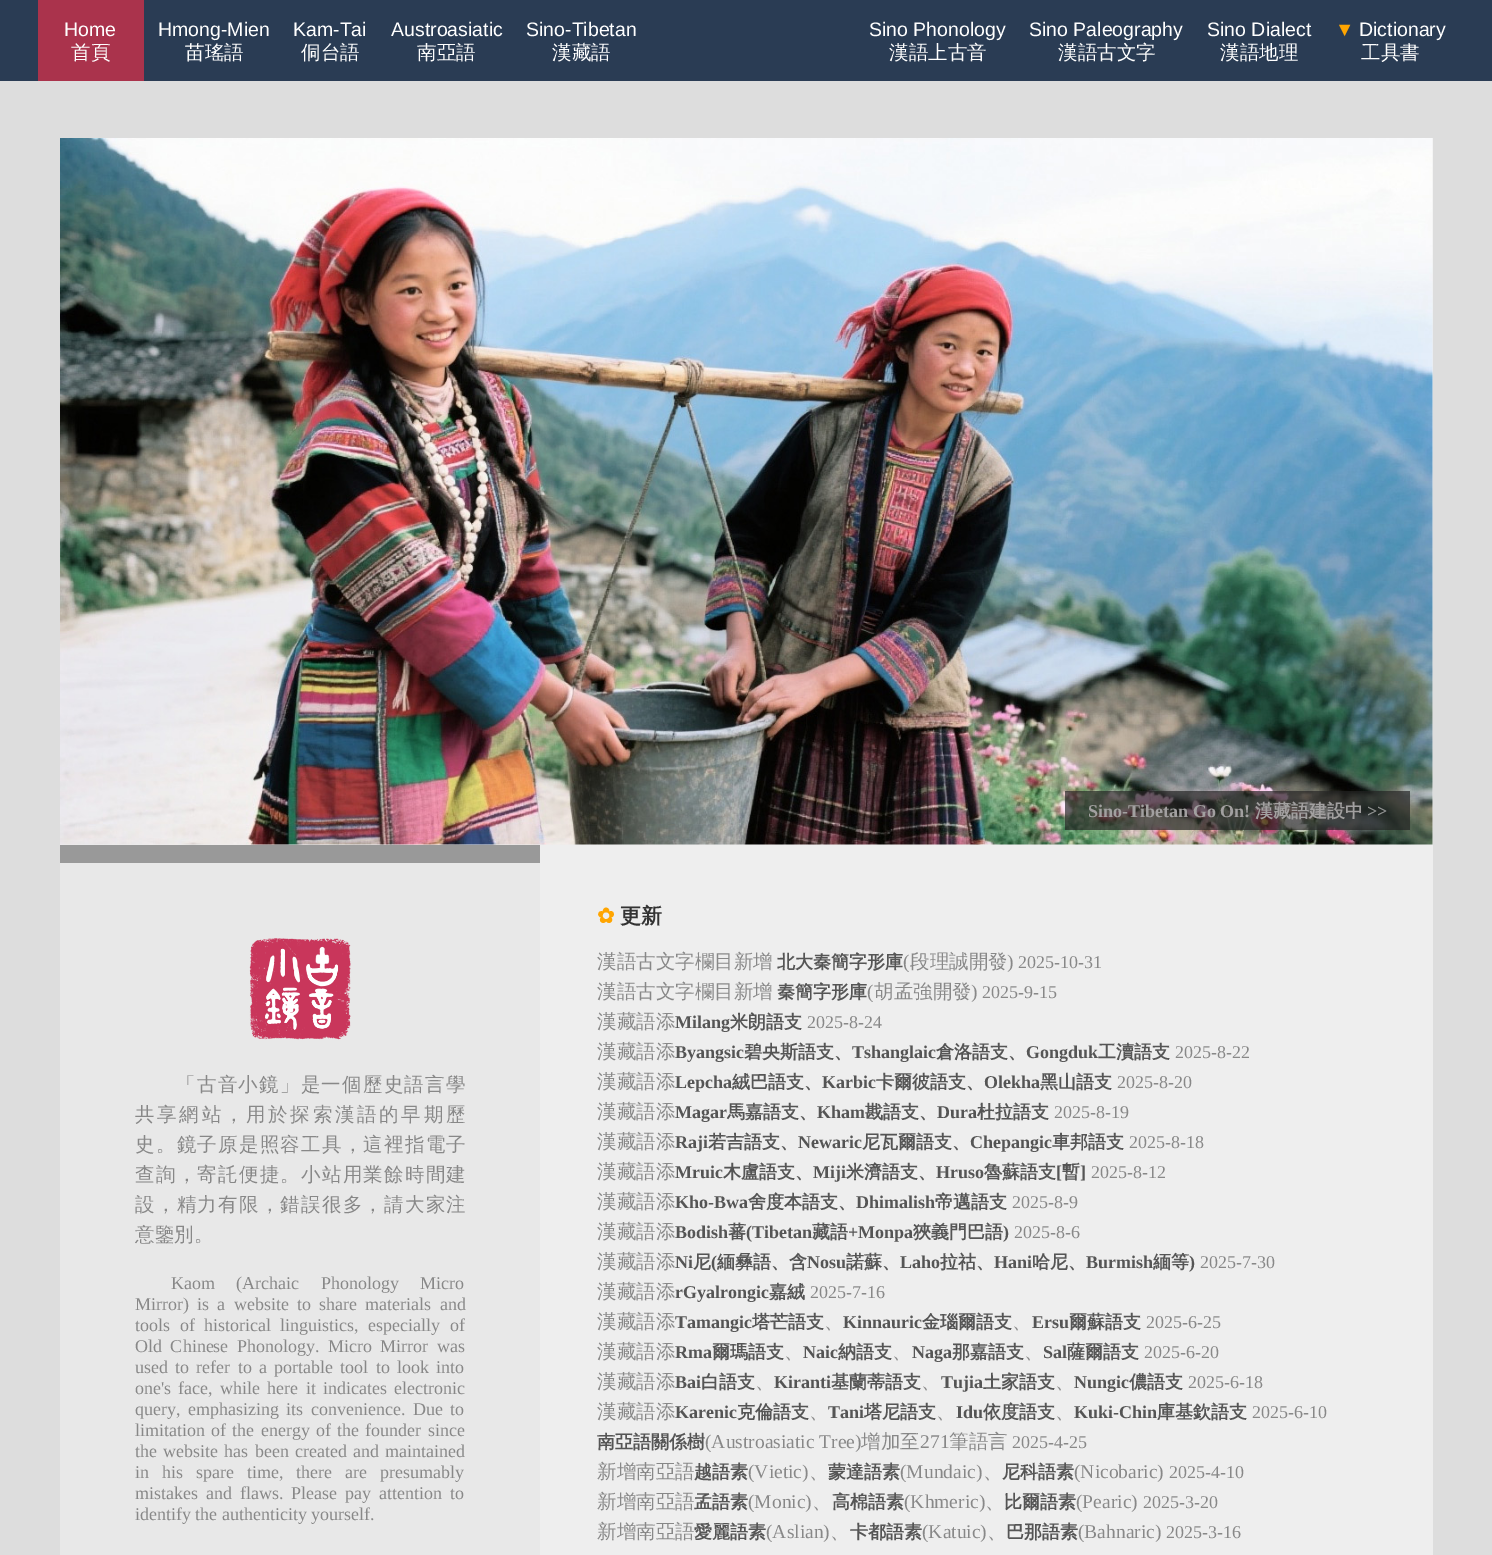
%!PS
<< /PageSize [1492 1555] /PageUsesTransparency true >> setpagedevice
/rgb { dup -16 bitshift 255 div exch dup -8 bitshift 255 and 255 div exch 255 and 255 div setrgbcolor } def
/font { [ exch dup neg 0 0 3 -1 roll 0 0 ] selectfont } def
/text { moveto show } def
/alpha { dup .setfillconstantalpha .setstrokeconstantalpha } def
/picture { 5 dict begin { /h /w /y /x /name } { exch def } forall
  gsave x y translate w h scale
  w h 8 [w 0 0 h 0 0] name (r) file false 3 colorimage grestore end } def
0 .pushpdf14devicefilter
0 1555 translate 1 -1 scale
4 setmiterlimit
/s1 { /LiberationSans-Regular 19.5 font 16#FFFFFF rgb } def
/s2 { /WenQuanYiZenHei-Medium 19.5 font 16#FFFFFF rgb } def
/s3 { /LiberationSans-Regular 19.5 font 16#FFA500 rgb } def
/s4 { /LiberationSerif-Bold 18 font 16#A2A0A0 rgb } def
/s5 { /WenQuanYiZenHei-Bold 18 font 16#A2A0A0 rgb } def
/s6 { /LiberationSerif-Bold 18 font 16#969897 rgb } def
/s7 { /WenQuanYiZenHei-Medium 19.5 font 16#888888 rgb } def
/s8 { /LiberationSerif-Regular 18 font 16#888888 rgb } def
/s9 { /DejaVuSans-Bold 21 font 16#FFA500 rgb } def
/s10 { /WenQuanYiZenHei-Bold 21 font 16#333333 rgb } def
/s11 { /WenQuanYiZenHei-Bold 18 font 16#555555 rgb } def
/s12 { /LiberationSerif-Regular 19.5 font 16#888888 rgb } def
/s13 { /LiberationSerif-Bold 18 font 16#555555 rgb } def
16#DDDDDD rgb
0 0 1492 1555 rectfill
16#2A3C54 rgb
0 0 1492 81 rectfill
16#AA334C rgb
38 0 106 81 rectfill
s1
(Home) 64 36 text
s2
(首頁) 71 59 text
s1
(Hmong-Mien) 158 36 text
s2
(苗瑤語) 185 59 text
s1
(Kam-Tai) 293 36 text
s2
(侗台語) 301 59 text
s1
(Austroasiatic) 391 36 text
s2
(南亞語) 417 59 text
s1
(Sino-Tibetan) 526 36 text
s2
(漢藏語) 552 59 text
s1
(Sino Phonology) 869 36 text
s2
(漢語上古音) 889 59 text
s1
(Sino Paleography) 1029 36 text
s2
(漢語古文字) 1058 59 text
s1
(Sino Dialect) 1207 36 text
s2
(漢語地理) 1220 59 text
s3
(▼) 1335 36 text
s1
(Dictionary) 1359 36 text
s2
(工具書) 1361 59 text
16#EEEEEE rgb
60 138 1373 707 rectfill
(pic1.raw) 60 138 1373 707 picture
0.68 alpha
16#222222 rgb
1065 791 345 39 rectfill
1 alpha
s4
(Sino-Tibetan Go On!) 1088 817 text
s5
(漢藏語建設中) 1255 817 text
s6
(>>) 1367 817 text
16#E8E8E8 rgb
60 863 480 692 rectfill
16#999999 rgb
60 845 480 18 rectfill
(pic2.raw) 249 938 102 102 picture
/WenQuanYiZenHei-Medium 19.5 font
16#888888 rgb
176 1091 moveto 1.25 0 (「古音小鏡」是一個歷史語言學) ashow
135 1121 moveto 2.7 0 (共享網站，用於探索漢語的早期歷) ashow
135 1151 moveto 1.25 0 (史。鏡子原是照容工具，這裡指電子) ashow
135 1181 moveto 1.25 0 (查詢，寄託便捷。小站用業餘時間建) ashow
135 1211 moveto 1.25 0 (設，精力有限，錯誤很多，請大家注) ashow
(意鑒別。) 135 1241 text
/LiberationSerif-Regular 18 font
171 1289 moveto 17 0 32 (Kaom \(Archaic Phonology Micro) widthshow
135 1310 moveto 3.75 0 32 (Mirror\) is a website to share materials and) widthshow
135 1331 moveto 5 0 32 (tools of historical linguistics, especially of) widthshow
135 1352 moveto 4 0 32 (Old Chinese Phonology. Micro Mirror was) widthshow
135 1373 moveto 2.75 0 32 (used to refer to a portable tool to look into) widthshow
135 1394 moveto 2.75 0 32 (one's face, while here it indicates electronic) widthshow
135 1415 moveto 3 0 32 (query, emphasizing its convenience. Due to) widthshow
135 1436 moveto 1.75 0 32 (limitation of the energy of the founder since) widthshow
135 1457 moveto 1.75 0 32 (the website has been created and maintained) widthshow
135 1478 moveto 8.5 0 32 (in his spare time, there are presumably) widthshow
135 1499 moveto 3.5 0 32 (mistakes and flaws. Please pay attention to) widthshow
(identify the authenticity yourself.) 135 1520 text
16#EEEEEE rgb
540 845 893 710 rectfill
s9
(✿) 597 923 text
s10
(更新) 620 923 text
s7
(漢語古文字欄目新增) 597 968 text
s11
(北大秦簡字形庫) 777 968 text
s12
(\() 903 968 text
s7
(段理誠開發) 910 968 text
s12
(\)) 1007 968 text
s8
(2025-10-31) 1018 968 text
s7
(漢語古文字欄目新增) 597 998 text
s11
(秦簡字形庫) 777 998 text
s12
(\() 867 998 text
s7
(胡孟強開發) 874 998 text
s12
(\)) 971 998 text
s8
(2025-9-15) 982 998 text
s7
(漢藏語添) 597 1028 text
s13
(Milang) 675 1028 text
s11
(米朗語支) 730 1028 text
s8
(2025-8-24) 807 1028 text
s7
(漢藏語添) 597 1058 text
s13
(Byangsic) 675 1058 text
s11
(碧央斯語支、) 744 1058 text
s13
(Tshanglaic) 852 1058 text
s11
(倉洛語支、) 936 1058 text
s13
(Gongduk) 1026 1058 text
s11
(工瀆語支) 1098 1058 text
s8
(2025-8-22) 1175 1058 text
s7
(漢藏語添) 597 1088 text
s13
(Lepcha) 675 1088 text
s11
(絨巴語支、) 732 1088 text
s13
(Karbic) 822 1088 text
s11
(卡爾彼語支、) 876 1088 text
s13
(Olekha) 984 1088 text
s11
(黑山語支) 1040 1088 text
s8
(2025-8-20) 1117 1088 text
s7
(漢藏語添) 597 1118 text
s13
(Magar) 675 1118 text
s11
(馬嘉語支、) 727 1118 text
s13
(Kham) 817 1118 text
s11
(戡語支、) 865 1118 text
s13
(Dura) 937 1118 text
s11
(杜拉語支) 977 1118 text
s8
(2025-8-19) 1054 1118 text
s7
(漢藏語添) 597 1148 text
s13
(Raji) 675 1148 text
s11
(若吉語支、) 708 1148 text
s13
(Newaric) 798 1148 text
s11
(尼瓦爾語支、) 862 1148 text
s13
(Chepangic) 970 1148 text
s11
(車邦語支) 1052 1148 text
s8
(2025-8-18) 1129 1148 text
s7
(漢藏語添) 597 1178 text
s13
(Mruic) 675 1178 text
s11
(木盧語支、) 723 1178 text
s13
(Miji) 813 1178 text
s11
(米濟語支、) 846 1178 text
s13
(Hruso) 936 1178 text
s11
(魯蘇語支) 984 1178 text
s13
([) 1056 1178 text
s11
(暫) 1062 1178 text
s13
(]) 1080 1178 text
s8
(2025-8-12) 1091 1178 text
s7
(漢藏語添) 597 1208 text
s13
(Kho-Bwa) 675 1208 text
s11
(舍度本語支、) 748 1208 text
s13
(Dhimalish) 856 1208 text
s11
(帝邁語支) 935 1208 text
s8
(2025-8-9) 1012 1208 text
s7
(漢藏語添) 597 1238 text
s13
(Bodish) 675 1238 text
s11
(蕃) 728 1238 text
s13
(\(Tibetan) 746 1238 text
s11
(藏語) 812 1238 text
s13
(+Monpa) 848 1238 text
s11
(狹義門巴語) 913 1238 text
s13
(\)) 1003 1238 text
s8
(2025-8-6) 1014 1238 text
s7
(漢藏語添) 597 1268 text
s13
(Ni) 675 1268 text
s11
(尼) 693 1268 text
s13
(\() 711 1268 text
s11
(緬彝語、含) 717 1268 text
s13
(Nosu) 807 1268 text
s11
(諾蘇、) 846 1268 text
s13
(Laho) 900 1268 text
s11
(拉祜、) 940 1268 text
s13
(Hani) 994 1268 text
s11
(哈尼、) 1032 1268 text
s13
(Burmish) 1086 1268 text
s11
(緬等) 1153 1268 text
s13
(\)) 1189 1268 text
s8
(2025-7-30) 1200 1268 text
s7
(漢藏語添) 597 1298 text
s13
(rGyalrongic) 675 1298 text
s11
(嘉絨) 769 1298 text
s8
(2025-7-16) 810 1298 text
s7
(漢藏語添) 597 1328 text
s13
(Tamangic) 675 1328 text
s11
(塔芒語支) 752 1328 text
s7
(、) 824 1328 text
s13
(Kinnauric) 843 1328 text
s11
(金瑙爾語支) 922 1328 text
s7
(、) 1012 1328 text
s13
(Ersu) 1032 1328 text
s11
(爾蘇語支) 1069 1328 text
s8
(2025-6-25) 1146 1328 text
s7
(漢藏語添) 597 1358 text
s13
(Rma) 675 1358 text
s11
(爾瑪語支) 712 1358 text
s7
(、) 784 1358 text
s13
(Naic) 803 1358 text
s11
(納語支) 838 1358 text
s7
(、) 892 1358 text
s13
(Naga) 912 1358 text
s11
(那嘉語支) 952 1358 text
s7
(、) 1024 1358 text
s13
(Sal) 1043 1358 text
s11
(薩爾語支) 1067 1358 text
s8
(2025-6-20) 1144 1358 text
s7
(漢藏語添) 597 1388 text
s13
(Bai) 675 1388 text
s11
(白語支) 701 1388 text
s7
(、) 755 1388 text
s13
(Kiranti) 774 1388 text
s11
(基蘭蒂語支) 831 1388 text
s7
(、) 921 1388 text
s13
(Tujia) 941 1388 text
s11
(土家語支) 983 1388 text
s7
(、) 1055 1388 text
s13
(Nungic) 1074 1388 text
s11
(儂語支) 1129 1388 text
s8
(2025-6-18) 1188 1388 text
s7
(漢藏語添) 597 1418 text
s13
(Karenic) 675 1418 text
s11
(克倫語支) 737 1418 text
s7
(、) 809 1418 text
s13
(Tani) 828 1418 text
s11
(塔尼語支) 864 1418 text
s7
(、) 936 1418 text
s13
(Idu) 956 1418 text
s11
(依度語支) 983 1418 text
s7
(、) 1055 1418 text
s13
(Kuki-Chin) 1074 1418 text
s11
(庫基欽語支) 1157 1418 text
s8
(2025-6-10) 1252 1418 text
s11
(南亞語關係樹) 597 1448 text
s12
(\(Austroasiatic Tree\)) 705 1448 text
s7
(增加至) 861 1448 text
s12
(271) 920 1448 text
s7
(筆語言) 949 1448 text
s8
(2025-4-25) 1012 1448 text
s7
(新增南亞語) 597 1478 text
s11
(越語素) 694 1478 text
s12
(\(Vietic\)) 748 1478 text
s7
(、) 809 1478 text
s11
(蒙達語素) 828 1478 text
s12
(\(Mundaic\)) 900 1478 text
s7
(、) 983 1478 text
s11
(尼科語素) 1002 1478 text
s12
(\(Nicobaric\)) 1074 1478 text
s8
(2025-4-10) 1169 1478 text
s7
(新增南亞語) 597 1508 text
s11
(孟語素) 694 1508 text
s12
(\(Monic\)) 748 1508 text
s7
(、) 812 1508 text
s11
(高棉語素) 832 1508 text
s12
(\(Khmeric\)) 904 1508 text
s7
(、) 985 1508 text
s11
(比爾語素) 1004 1508 text
s12
(\(Pearic\)) 1076 1508 text
s8
(2025-3-20) 1143 1508 text
s7
(新增南亞語) 597 1538 text
s11
(愛麗語素) 694 1538 text
s12
(\(Aslian\)) 766 1538 text
s7
(、) 830 1538 text
s11
(卡都語素) 850 1538 text
s12
(\(Katuic\)) 922 1538 text
s7
(、) 987 1538 text
s11
(巴那語素) 1006 1538 text
s12
(\(Bahnaric\)) 1078 1538 text
s8
(2025-3-16) 1166 1538 text
.poppdf14devicefilter showpage
